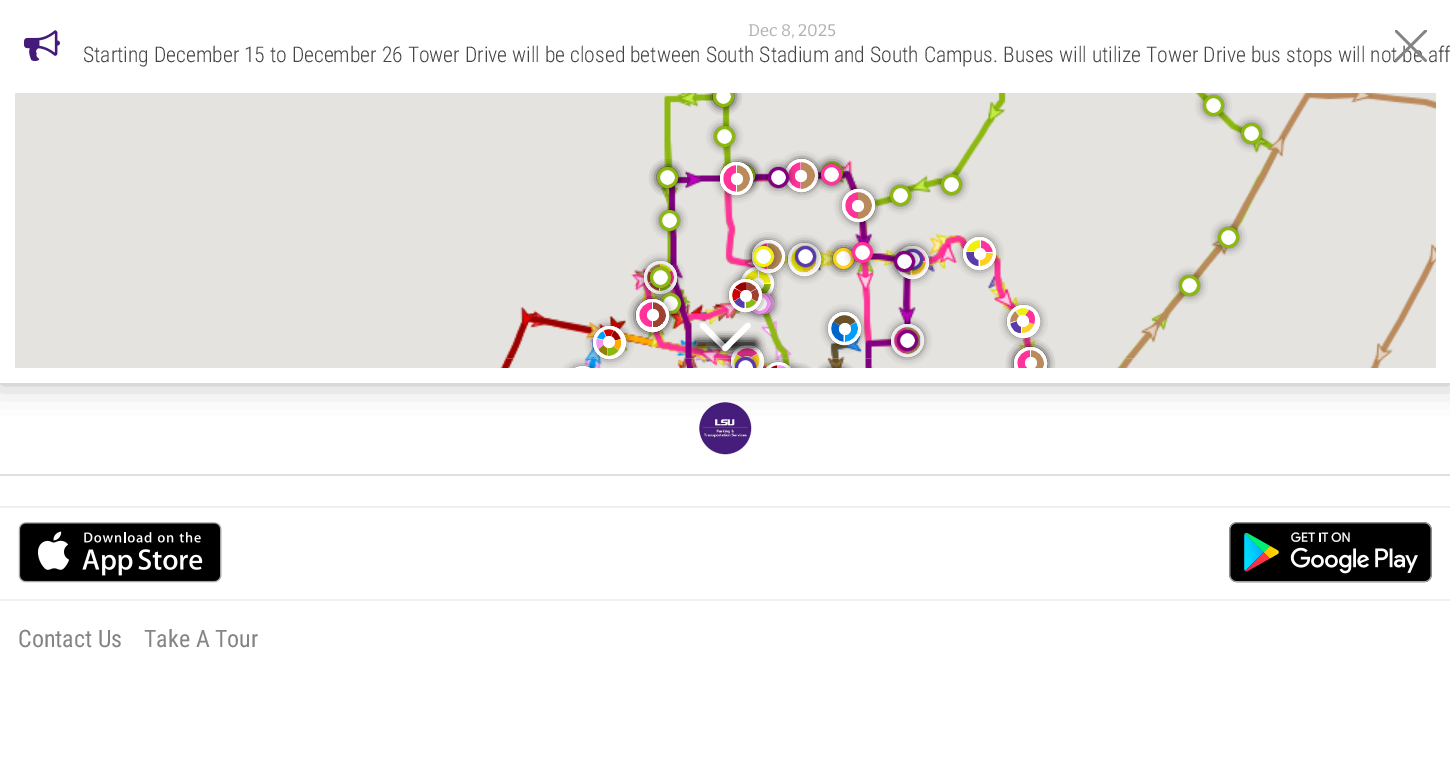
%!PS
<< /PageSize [1450 764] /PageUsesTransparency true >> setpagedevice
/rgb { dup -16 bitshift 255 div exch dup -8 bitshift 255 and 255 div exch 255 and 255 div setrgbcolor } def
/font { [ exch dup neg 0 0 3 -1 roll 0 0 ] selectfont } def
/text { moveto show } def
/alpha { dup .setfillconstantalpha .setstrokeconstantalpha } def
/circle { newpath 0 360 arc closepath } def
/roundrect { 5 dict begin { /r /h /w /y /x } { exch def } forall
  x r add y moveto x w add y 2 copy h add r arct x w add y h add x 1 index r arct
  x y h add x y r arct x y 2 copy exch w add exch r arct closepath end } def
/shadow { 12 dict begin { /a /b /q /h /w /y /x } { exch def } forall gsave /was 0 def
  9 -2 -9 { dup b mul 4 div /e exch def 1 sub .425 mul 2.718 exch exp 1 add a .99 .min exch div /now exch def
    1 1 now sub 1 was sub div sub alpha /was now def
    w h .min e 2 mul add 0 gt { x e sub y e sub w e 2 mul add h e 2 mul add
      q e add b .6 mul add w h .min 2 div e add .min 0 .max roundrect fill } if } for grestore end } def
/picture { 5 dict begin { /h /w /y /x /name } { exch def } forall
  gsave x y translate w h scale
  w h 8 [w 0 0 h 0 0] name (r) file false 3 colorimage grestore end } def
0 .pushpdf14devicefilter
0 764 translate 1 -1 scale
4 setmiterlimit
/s1 { /Bitter-Thin 16.75 font 16#B1B1B1 rgb } def
/s2 { /RobotoCondensed-Light 21.6 font 16#444444 rgb } def
/s3 { /RobotoCondensed-Regular 24 font 16#848484 rgb } def
16#E5E3DF rgb
0 0 1450 764 rectfill
(pic3.raw) 687 93 349 266 picture
16#000000 rgb
716 89 15 15 7.5 5 1 shadow
16#8CB811 rgb
3 setlinewidth
723.5 96.5 9 circle stroke
16#000000 rgb
716 89 15 15 7.5 5 1 shadow
16#FFFFFF rgb
723.5 96.5 9 circle gsave fill grestore
16#8CB811 rgb
stroke
(pic4.raw) 1124 93 312 266 picture
16#000000 rgb
1206 98 15 15 7.5 5 1 shadow
16#FFFFFF rgb
0 0 1450 93 rectfill
(pic1.raw) 24 30 36 32 picture
s1
(Dec 8, 2025) 748 36 text
s2
(Starting December 15 to December 26 Tower Drive will be closed between South Stadium and South Campus. Buses will utilize Tower Drive bus stops will not be aff) 83 62 text
gsave
1395 30 32 32 rectclip
16#848484 rgb
1396 29 moveto 1427.5 60.5 lineto 1425.5 62.5 lineto 1394 31 lineto closepath fill
1394 60.5 moveto 1425.5 29 lineto 1427.5 31 lineto 1396 62.5 lineto closepath fill
grestore
16#FFFFFF rgb
1213.5 105.5 9 circle gsave fill grestore
16#8CB811 rgb
stroke
16#000000 rgb
1244 126 15 15 7.5 5 1 shadow
16#FFFFFF rgb
1251.5 133.5 9 circle gsave fill grestore
16#8CB811 rgb
stroke
16#000000 rgb
717 129 15 15 7.5 5 1 shadow
16#FFFFFF rgb
724.5 136.5 9 circle gsave fill grestore
16#8CB811 rgb
stroke
16#000000 rgb
737 168 15 15 7.5 5 1 shadow
16#8CB811 rgb
744.5 175.5 9 circle stroke
16#000000 rgb
737 168 15 15 7.5 5 1 shadow
16#8CB811 rgb
744.5 175.5 9 circle stroke
16#000000 rgb
723 165 27 27 13.5 5 1 shadow
16#FFFFFF rgb
736.5 178.5 16.5 circle fill
16#FF3399 rgb
736 191.5 moveto 736 165 lineto 719 165.5 719 191.5 736 191.5 curveto closepath fill
gsave
723 165 27 27 13.5 roundrect clip newpath
16#BA8A5C rgb
737 165 moveto 738 165 lineto 745.5 165 752 171.5 752 179 curveto 752 180 lineto 752 187.5 745.5 194 738 194 curveto 737 194 lineto closepath fill
grestore
16#FFFFFF rgb
737 179 6 circle fill
736.5 178.5 15 circle stroke
16#000000 rgb
825 165 15 15 7.5 5 1 shadow
795 167 15 15 7.5 5 1 shadow
16#8CB811 rgb
832.5 172.5 9 circle stroke
16#000000 rgb
788 162 27 27 13.5 5 1 shadow
795 167 15 15 7.5 5 1 shadow
16#FFFFFF rgb
801.5 175.5 16.5 circle fill
16#FF3399 rgb
800.5 188.5 moveto 800.5 162 lineto 784 163.5 784.5 188.5 800.5 188.5 curveto closepath fill
gsave
788 162 27 27 13.5 roundrect clip newpath
16#BA8A5C rgb
801 162 moveto 802 162 lineto 809.5 162 816 168.5 816 176 curveto 816 177 lineto 816 184.5 809.5 191 802 191 curveto 801 191 lineto closepath fill
grestore
16#FFFFFF rgb
801 176 6 circle fill
801.5 175.5 15 circle stroke
16#000000 rgb
845 192 27 27 13.5 5 1 shadow
854 201 15 15 7.5 5 1 shadow
16#FFFFFF rgb
858.5 205.5 16.5 circle fill
16#FF3399 rgb
858 218.5 moveto 858 192 lineto 841 192.5 841 218.5 858 218.5 curveto closepath fill
gsave
845 192 27 27 13.5 roundrect clip newpath
16#BA8A5C rgb
858 192 moveto 859 192 lineto 866.5 192 873 198.5 873 206 curveto 873 207 lineto 873 214.5 866.5 221 859 221 curveto 858 221 lineto closepath fill
grestore
16#FFFFFF rgb
858 206 6 circle fill
858.5 205.5 15 circle stroke
16#000000 rgb
824 167 15 15 7.5 5 1 shadow
16#FFFFFF rgb
831.5 174.5 9 circle gsave fill grestore
16#FF3399 rgb
stroke
(pic2.raw) 505 93 182 266 picture
16#000000 rgb
660 170 15 15 7.5 5 1 shadow
16#8CB811 rgb
667.5 177.5 9 circle stroke
16#000000 rgb
660 170 15 15 7.5 5 1 shadow
16#FFFFFF rgb
667.5 177.5 9 circle gsave fill grestore
16#8CB811 rgb
stroke
16#000000 rgb
771 170 15 15 7.5 5 1 shadow
16#FFFFFF rgb
778.5 177.5 9 circle gsave fill grestore
16#800080 rgb
stroke
16#000000 rgb
893 188 15 15 7.5 5 1 shadow
16#FFFFFF rgb
900.5 195.5 9 circle gsave fill grestore
16#8CB811 rgb
stroke
16#000000 rgb
944 177 15 15 7.5 5 1 shadow
16#FFFFFF rgb
951.5 184.5 9 circle gsave fill grestore
16#8CB811 rgb
stroke
16#000000 rgb
662 213 15 15 7.5 5 1 shadow
16#FFFFFF rgb
669.5 220.5 9 circle gsave fill grestore
16#8CB811 rgb
stroke
16#000000 rgb
744 270 27 27 13.5 5 1 shadow
16#FFFFFF rgb
757.5 283.5 16.5 circle fill
gsave
743 270 15 27 rectclip
16#F0F00E rgb
757.5 270 moveto 764.5 270 770.5 275.5 771 282.5 curveto 744 282.5 lineto 744.5 275.5 750.5 270 757.5 270 curveto closepath fill
grestore
16#F0F00E rgb
759 270 moveto 766 271 770.5 276.5 770.5 283 curveto 759 283 lineto closepath fill
16#8CB811 rgb
771 284 moveto 770.5 301 744.5 301 744 284 curveto closepath fill
16#FFFFFF rgb
758 284 6 circle fill
757.5 283.5 15 circle stroke
16#000000 rgb
756 296 15 15 7.5 5 1 shadow
16#FFFFFF rgb
763.5 303.5 9 circle gsave fill grestore
16#F296F2 rgb
stroke
16#000000 rgb
752 296 15 15 7.5 5 1 shadow
16#FFFFFF rgb
759.5 303.5 9 circle gsave fill grestore
16#F296F2 rgb
stroke
16#000000 rgb
732 282 27 27 13.5 5 1 shadow
16#FFFFFF rgb
745.5 295.5 16.5 circle fill
16#583AAB rgb
744.5 295 moveto 744.5 308 lineto 740 307.5 736 305 734 301.5 curveto closepath fill
16#CF0000 rgb
745 294 moveto 733.5 301 lineto 731.5 297 731.5 292 733.5 288 curveto closepath fill
gsave
731 281 15 27 rectclip
16#990000 rgb
745.5 281 moveto 755.5 281 762 292 757.5 301 curveto 734 287 lineto 736.5 283.5 740.5 281 745.5 281 curveto closepath fill
grestore
16#9E4133 rgb
756 286 moveto 757 288 lineto 746 294 lineto 746 281 lineto 750 281 753.5 283 756 286 curveto closepath fill
gsave
746 281 15 27 rectclip
16#8CB811 rgb
756.5 302 moveto 747.5 316 726 303 733.5 288.5 curveto closepath fill
grestore
757.5 288.5 moveto 759.5 292.5 759.5 297.5 757 301.5 curveto 746 295 lineto closepath fill
16#FFFFFF rgb
746 296 6 circle fill
745.5 295.5 15 circle stroke
16#000000 rgb
755 249 15 15 7.5 5 1 shadow
16#583AAB rgb
762.5 256.5 9 circle stroke
16#000000 rgb
836 251 15 15 7.5 5 1 shadow
16#8CB811 rgb
843.5 258.5 9 circle stroke
16#000000 rgb
791 246 27 27 13.5 5 1 shadow
16#FFFFFF rgb
804.5 259.5 16.5 circle fill
16#F0F00E rgb
802.5 245 moveto 803 245 lineto 803 272 lineto 790 272.5 783.5 255 795 247.5 curveto 797 246 800 245 802.5 245 curveto closepath fill
gsave
789 245 27 27 13.5 roundrect clip newpath
16#FDD023 rgb
803 245 moveto 804 245 lineto 811.5 245 818 251.5 818 259 curveto 818 266.5 811.5 273 804 273 curveto 803 273 lineto closepath fill
grestore
16#FFFFFF rgb
804.5 259.5 15 circle stroke
16#000000 rgb
798 249 15 15 7.5 5 1 shadow
16#FFFFFF rgb
805.5 256.5 9 circle gsave fill grestore
16#583AAB rgb
stroke
16#000000 rgb
755 243 27 27 13.5 5 1 shadow
16#FFFFFF rgb
768.5 256.5 16.5 circle fill
16#FF3399 rgb
767.5 242 moveto 767.5 269 lineto 751 268 751 243 767.5 242 curveto closepath fill
gsave
755 242 27 27 13.5 roundrect clip newpath
16#BA8A5C rgb
768 242 moveto 769 242 lineto 776.5 242 783 248.5 783 256 curveto 783 263.5 776.5 270 769 270 curveto 768 270 lineto closepath fill
grestore
16#FFFFFF rgb
768.5 256.5 15 circle stroke
16#000000 rgb
966 240 27 27 13.5 5 1 shadow
16#FFFFFF rgb
979.5 253.5 16.5 circle fill
gsave
965 239 15 27 rectclip
16#F0F00E rgb
979.5 239 moveto 986.5 239 992.5 244.5 993 251.5 curveto 966 251.5 lineto 966.5 244.5 972.5 239 979.5 239 curveto closepath fill
grestore
16#FF3399 rgb
981 239 moveto 987.5 240 993 245.5 993 252 curveto 981 252 lineto closepath fill
16#583AAB rgb
978.5 252 moveto 978.5 266 lineto 971.5 265.5 966 259.5 966 252 curveto closepath fill
gsave
980 239 15 27 rectclip
16#FDD023 rgb
993 253 moveto 992.5 270 966.5 270 966 253 curveto closepath fill
grestore
16#FFFFFF rgb
980 254 6 circle fill
979.5 253.5 15 circle stroke
16#000000 rgb
1221 230 15 15 7.5 5 1 shadow
16#FFFFFF rgb
1228.5 237.5 9 circle gsave fill grestore
16#8CB811 rgb
stroke
16#000000 rgb
836 251 15 15 7.5 5 1 shadow
16#FFFFFF rgb
843.5 258.5 9 circle gsave fill grestore
16#FDD023 rgb
stroke
16#000000 rgb
855 245 15 15 7.5 5 1 shadow
16#FFFFFF rgb
862.5 252.5 9 circle gsave fill grestore
16#FF3399 rgb
stroke
16#000000 rgb
756 249 15 15 7.5 5 1 shadow
16#FFFFFF rgb
763.5 256.5 9 circle gsave fill grestore
16#F0F00E rgb
stroke
16#000000 rgb
899 249 27 27 13.5 5 1 shadow
16#FFFFFF rgb
912.5 262.5 16.5 circle fill
gsave
897 248 15 27 rectclip
16#F0F00E rgb
912.5 248 moveto 919.5 248 925.5 253.5 925.5 260.5 curveto 899 260.5 lineto 899.5 253.5 905.5 248 912.5 248 curveto closepath fill
grestore
16#FF3399 rgb
914 248 moveto 919 248.5 923 251.5 925 256 curveto 925 261 lineto 914 261 lineto closepath fill
16#BA8A5C rgb
910.5 261 moveto 910.5 275 lineto 904 274 899 268 899 261 curveto closepath fill
gsave
912 248 15 27 rectclip
16#FDD023 rgb
925.5 262 moveto 925.5 279 899.5 279 899 262 curveto closepath fill
grestore
16#FFFFFF rgb
912.5 262.5 15 circle stroke
16#000000 rgb
905 252 15 15 7.5 5 1 shadow
16#FFFFFF rgb
912.5 259.5 9 circle gsave fill grestore
16#583AAB rgb
stroke
(pic5.raw) 500 358 187 10 picture
16#000000 rgb
596 329 27 27 13.5 5 1 shadow
16#FFFFFF rgb
609.5 342.5 16.5 circle fill
16#918002 rgb
607.5 342 moveto 597.5 350 lineto 601 354.5 lineto 603 355.5 605 356 607.5 356 curveto closepath fill
16#F296F2 rgb
607.5 341.5 moveto 596.5 350.5 lineto 593.5 346 594 343.5 595 338.5 curveto closepath fill
16#009DFF rgb
602.5 330 moveto 607.5 340.5 lineto 595 337.5 lineto 596 334 599 331.5 602.5 330 curveto closepath fill
16#CF0000 rgb
607.5 329 moveto 609.5 329 611.5 329.5 613.5 330.5 curveto 608.5 341 lineto 603.5 329.5 lineto closepath fill
16#990000 rgb
614 330.5 moveto 617 332.5 619.5 335.5 620.5 339 curveto 609 341.5 lineto closepath fill
gsave
608 329 15 27 rectclip
16#8CB811 rgb
618.5 350.5 moveto 614.5 356 606 358 600 353.5 curveto 593.5 349 592 339.5 597.5 333.5 curveto closepath fill
grestore
16#FFAA00 rgb
620.5 339.5 moveto 621.5 343 621 347 618.5 350 curveto 608.5 342 lineto closepath fill
16#FFFFFF rgb
609 342 6 circle fill
609.5 342.5 15 circle stroke
16#000000 rgb
639 302 27 27 13.5 5 1 shadow
16#FFFFFF rgb
652.5 315.5 15 circle stroke
16#000000 rgb
647 264 27 27 13.5 5 1 shadow
16#FFFFFF rgb
660.5 277.5 16.5 circle fill
16#9E4133 rgb
659 277.5 moveto 659 291 lineto 654.5 290.5 650.5 287.5 648.5 284 curveto closepath fill
659 277 moveto 648 283 lineto 646.5 279 646.5 274.5 648.5 271 curveto closepath fill
gsave
645 264 15 27 rectclip
16#BA8A5C rgb
660.5 264 moveto 671.5 264 677 275 672 284 curveto 649 270.5 lineto 651.5 266.5 655.5 264 660.5 264 curveto closepath fill
grestore
16#F0F00E rgb
660.5 264 moveto 664 264 667 265.5 669.5 267.5 curveto 671.5 270.5 lineto 660 277 lineto 660 264 lineto closepath fill
gsave
660 264 15 27 rectclip
16#8CB811 rgb
671.5 285 moveto 662 299 641 286 648.5 271.5 curveto closepath fill
grestore
16#FF3399 rgb
672 270.5 moveto 673.5 272.5 675 277.5 674 280 curveto 671.5 284 lineto 660.5 277.5 lineto closepath fill
16#FFFFFF rgb
660.5 277.5 15 circle stroke
16#000000 rgb
897 254 15 15 7.5 5 1 shadow
16#FFFFFF rgb
904.5 261.5 9 circle gsave fill grestore
16#800080 rgb
stroke
16#000000 rgb
663 296 15 15 7.5 5 1 shadow
16#FFFFFF rgb
670.5 303.5 9 circle gsave fill grestore
16#8CB811 rgb
stroke
16#000000 rgb
653 270 15 15 7.5 5 1 shadow
16#FFFFFF rgb
660.5 277.5 9 circle gsave fill grestore
16#8CB811 rgb
stroke
16#000000 rgb
1182 278 15 15 7.5 5 1 shadow
16#FFFFFF rgb
1189.5 285.5 9 circle gsave fill grestore
16#8CB811 rgb
stroke
16#000000 rgb
639 302 27 27 13.5 5 1 shadow
16#FFFFFF rgb
652.5 315.5 16.5 circle fill
16#FF3399 rgb
652 300 moveto 652 327 lineto 635 326.5 635 300.5 652 300 curveto closepath fill
gsave
639 300 27 27 13.5 roundrect clip newpath
16#9E4133 rgb
653 300 moveto 654 300 lineto 661.5 300 668 306.5 668 314 curveto 668 315 lineto 668 322.5 661.5 329 654 329 curveto 653 329 lineto closepath fill
grestore
16#FFFFFF rgb
653 315 6 circle fill
652.5 315.5 15 circle stroke
16#000000 rgb
831 315 27 27 13.5 5 1 shadow
16#FFFFFF rgb
844.5 328.5 16.5 circle fill
16#0066CC rgb
843.5 328 moveto 843.5 342 lineto 833.5 341 828 330 833 321.5 curveto closepath fill
gsave
845 315 15 27 rectclip
16#009DFF rgb
856.5 322 moveto 864.5 337 842 350.5 833 335.5 curveto closepath fill
grestore
16#695129 rgb
844.5 315 moveto 849.5 315 853.5 317.5 856 321.5 curveto 845 328 lineto 833 321.5 lineto 835.5 317.5 839.5 315 844.5 315 curveto closepath fill
16#FFFFFF rgb
845 329 6 circle fill
844.5 328.5 15 circle stroke
16#000000 rgb
894 327 27 27 13.5 5 1 shadow
16#FFFFFF rgb
907.5 340.5 16.5 circle fill
16#FF3399 rgb
906 353.5 moveto 906 327 lineto 889 327.5 889 353.5 906 353.5 curveto closepath fill
gsave
893 327 27 27 13.5 roundrect clip newpath
16#BA8A5C rgb
906 327 moveto 907 327 lineto 914.5 327 921 333.5 921 341 curveto 921 342 lineto 921 349.5 914.5 356 907 356 curveto 906 356 lineto closepath fill
grestore
16#FFFFFF rgb
907.5 340.5 15 circle stroke
16#000000 rgb
1010 308 27 27 13.5 5 1 shadow
16#FFFFFF rgb
1023.5 321.5 16.5 circle fill
16#583AAB rgb
1021 320 moveto 1021 333 lineto 1015.5 333 1010.5 329 1009 324 curveto closepath fill
16#BA8A5C rgb
1021 319 moveto 1008.5 323 lineto 1007.5 319 1008.5 313.5 1011.5 310.5 curveto 1013.5 309 lineto closepath fill
16#F0F00E rgb
1021.5 306 moveto 1024.5 306 1027 307 1029.5 309 curveto 1022 319 lineto 1014 308 lineto 1016 307 1018.5 306 1021.5 306 curveto closepath fill
gsave
1022 306 15 27 rectclip
16#FDD023 rgb
1034 324.5 moveto 1027.5 340 1004.5 332 1008.5 316 curveto closepath fill
grestore
16#FF3399 rgb
1030 309 moveto 1034.5 312.5 1036 318.5 1034 324 curveto 1022 320 lineto closepath fill
16#FFFFFF rgb
1023 321 6 circle fill
1023.5 321.5 15 circle stroke
(pic6.raw) 687 358 186 10 picture
16#000000 rgb
765 365 27 27 13.5 5 1 shadow
gsave
762 363 15 20 rectclip
16#990000 rgb
777.5 390 moveto 777.5 363 lineto 759.5 363 759.5 390 777.5 390 curveto closepath fill
grestore
16#F296F2 rgb
777 363 moveto 778 363 lineto 785.5 363 792 369.5 792 377 curveto 792 378 lineto 792 385.5 785.5 392 778 392 curveto 777 392 lineto closepath fill
16#FFFFFF rgb
778.5 378.5 15 circle stroke
16#000000 rgb
734 348 27 27 13.5 5 1 shadow
16#FFFFFF rgb
747.5 361.5 16.5 circle fill
16#F0F00E rgb
745.5 374 moveto 736.5 374 730 365 732.5 356.5 curveto 734 353.5 lineto 745.5 360 lineto closepath fill
16#FDD023 rgb
757.5 354 moveto 765.5 369 743 382.5 734 367.5 curveto closepath fill
16#FF3399 rgb
745.5 347 moveto 750.5 347 754.5 349.5 757 353.5 curveto 746.5 359.5 lineto 734.5 353 lineto 737 349.5 741 347 745.5 347 curveto closepath fill
16#FFFFFF rgb
747 362 6 circle fill
747.5 361.5 15 circle stroke
16#000000 rgb
900 333 15 15 7.5 5 1 shadow
16#FFFFFF rgb
907.5 340.5 9 circle gsave fill grestore
16#800080 rgb
stroke
16#000000 rgb
1017 350 27 27 13.5 5 1 shadow
16#FFFFFF rgb
1030.5 363.5 15 circle stroke
16#000000 rgb
569 369 27 27 13.5 5 1 shadow
16#FFFFFF rgb
582.5 382.5 15 circle stroke
16#000000 rgb
738 360 15 15 7.5 5 1 shadow
16#FFFFFF rgb
745.5 367.5 9 circle gsave fill grestore
16#583AAB rgb
stroke
16#000000 rgb
822 371 27 27 13.5 5 1 shadow
1017 350 27 27 13.5 5 1 shadow
1010 375 27 27 13.5 5 1 shadow
16#FFFFFF rgb
1030.5 363.5 16.5 circle fill
16#FF3399 rgb
1030 348 moveto 1030 375 lineto 1013 374.5 1013 348.5 1030 348 curveto closepath fill
gsave
1017 348 27 27 13.5 roundrect clip newpath
16#BA8A5C rgb
1031 348 moveto 1032 348 lineto 1039.5 348 1046 354.5 1046 362 curveto 1046 363 lineto 1046 370.5 1039.5 377 1032 377 curveto 1031 377 lineto closepath fill
grestore
16#FFFFFF rgb
1031 363 6 circle fill
1030.5 363.5 15 circle stroke
16#000000 rgb
783 374 27 27 13.5 5 1 shadow
822 372 27 27 13.5 5 1 shadow
783 374 27 27 13.5 5 1 shadow
(pic7.raw) 1117 358 267 10 picture
16#FFFFFF rgb
0 93 15 275 rectfill
16#000000 rgb
696 341 38 6 3 4.5 0.6 shadow
719 341 37 6 3 4.5 0.6 shadow
16#FFFFFF rgb
1436 93 14 275 rectfill
0 368 1450 396 rectfill
16#000000 rgb
696 341 38 6 3 4.5 0.6 shadow
16#FFFFFF rgb
705 323.5 moveto 727.5 346.5 lineto 729 349 726.5 352 724 351 curveto 704.5 331.5 lineto 703 330 698 326.5 700.5 323.5 curveto 702 322.5 704 322.5 705 323.5 curveto closepath fill
16#000000 rgb
719 341 37 6 3 4.5 0.6 shadow
16#FFFFFF rgb
723 346 moveto 746 323.5 lineto 748.5 321.5 751.5 324 750.5 327 curveto 731 346.5 lineto 729.5 348 726 353 723 350 curveto 722 349 722 347 723 346 curveto closepath fill
(pic8.raw) 699 402 53 53 picture
gsave
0 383 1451 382 rectclip
16#000000 rgb
0 368 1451 15 0 15 0.3 shadow
grestore
16#E0E0E0 rgb
0 474 1450 2 rectfill
16#EFEFEF rgb
0 506 1450 2 rectfill
0 599 1450 2 rectfill
(pic9.raw) 18 522 204 61 picture
(pic10.raw) 1229 522 203 61 picture
s3
(Contact Us) 18 647 text
(Take A Tour) 144 647 text
.poppdf14devicefilter showpage
